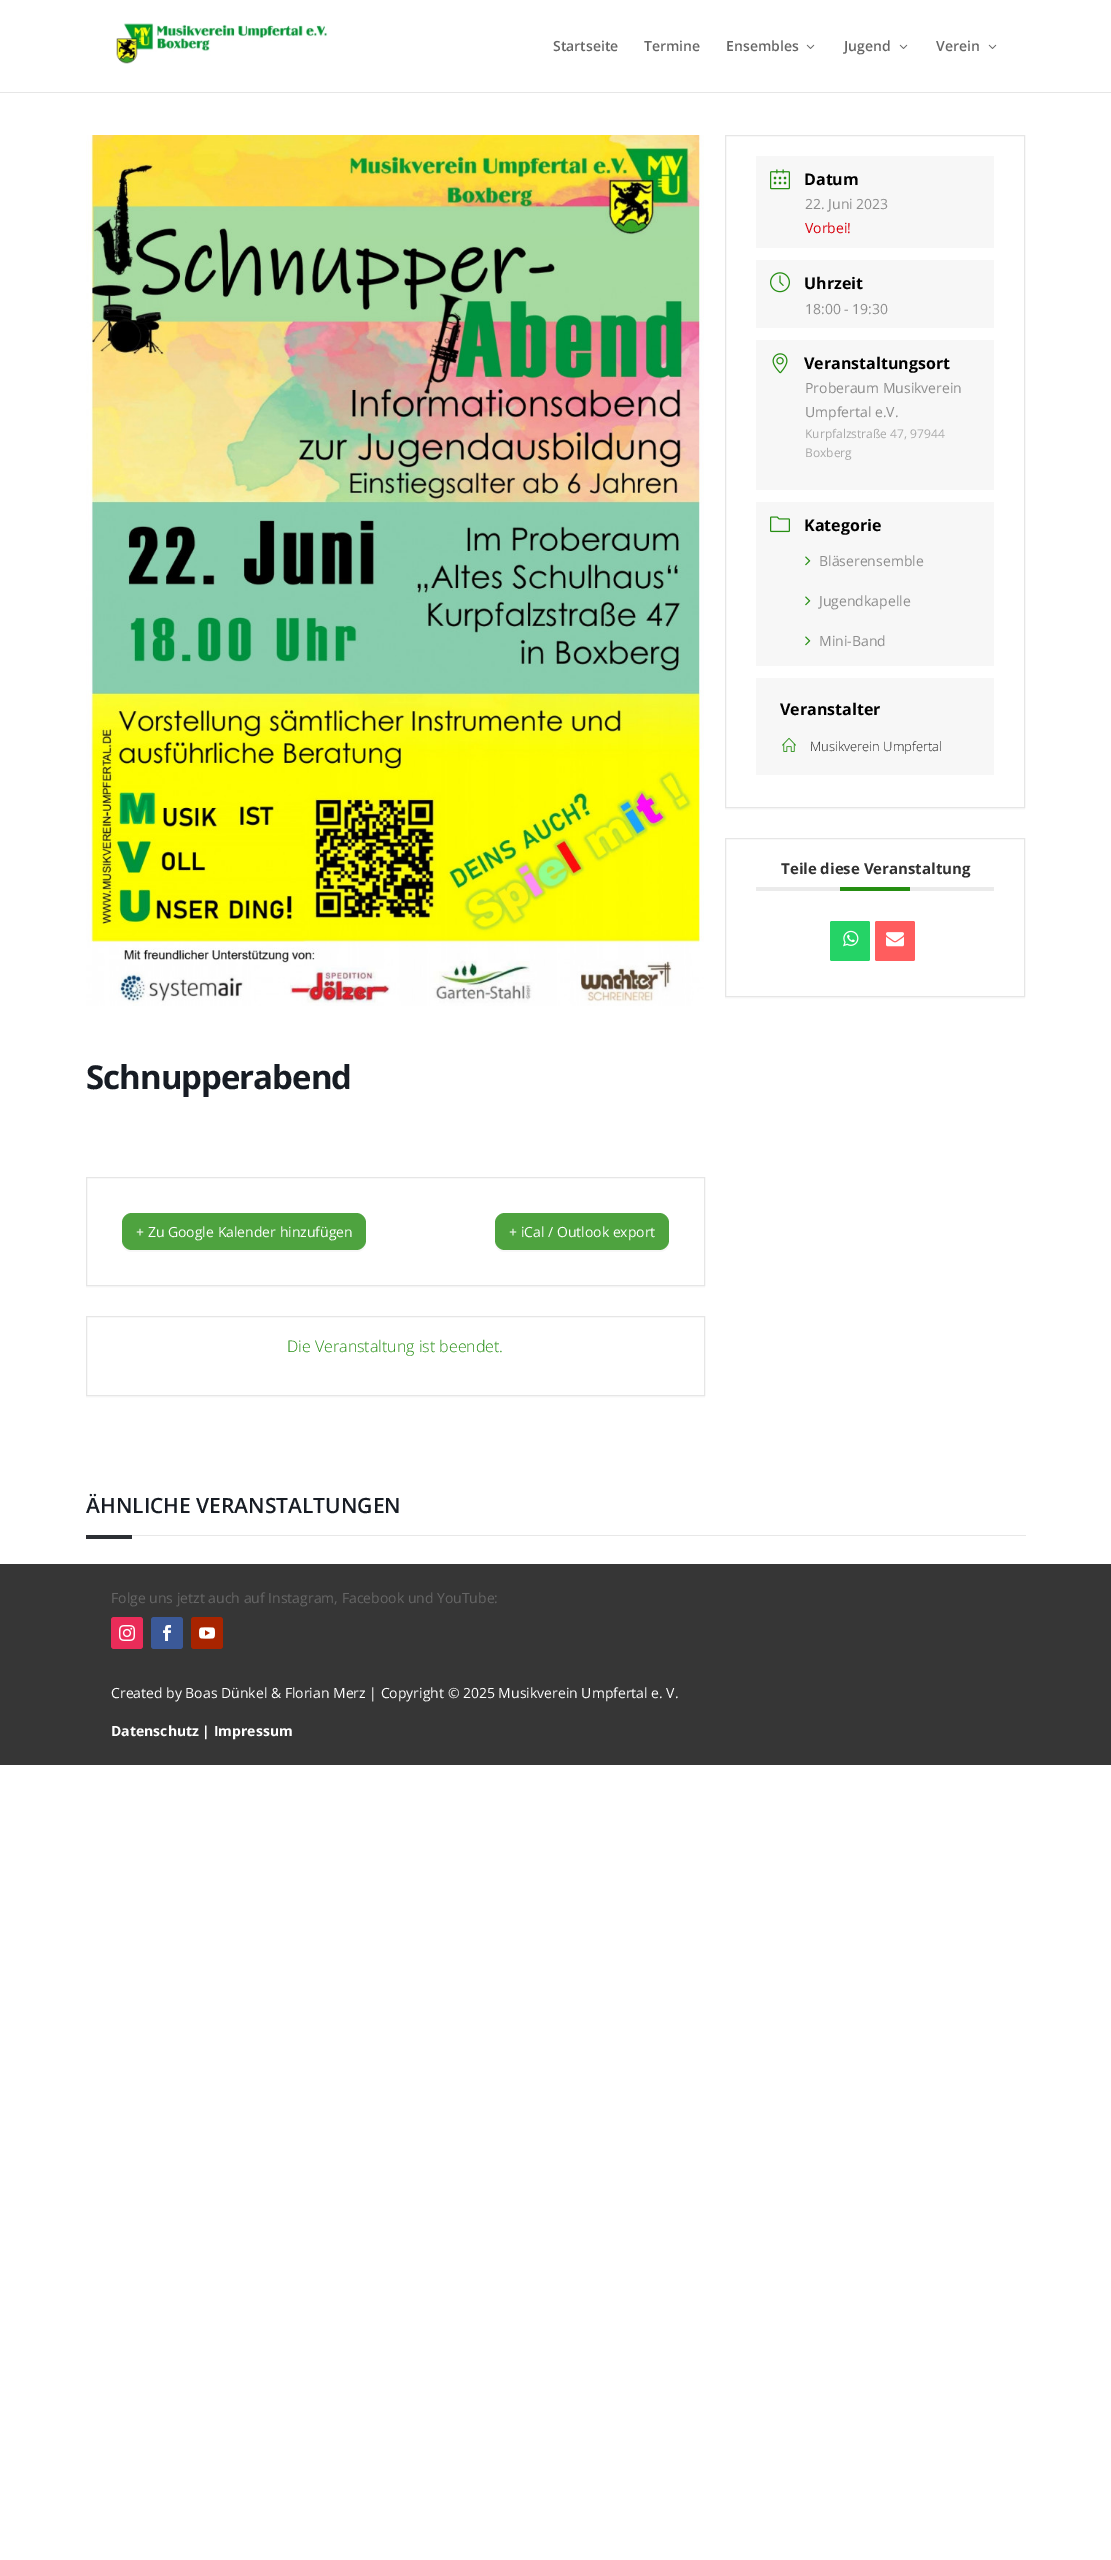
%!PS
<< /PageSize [1111 2560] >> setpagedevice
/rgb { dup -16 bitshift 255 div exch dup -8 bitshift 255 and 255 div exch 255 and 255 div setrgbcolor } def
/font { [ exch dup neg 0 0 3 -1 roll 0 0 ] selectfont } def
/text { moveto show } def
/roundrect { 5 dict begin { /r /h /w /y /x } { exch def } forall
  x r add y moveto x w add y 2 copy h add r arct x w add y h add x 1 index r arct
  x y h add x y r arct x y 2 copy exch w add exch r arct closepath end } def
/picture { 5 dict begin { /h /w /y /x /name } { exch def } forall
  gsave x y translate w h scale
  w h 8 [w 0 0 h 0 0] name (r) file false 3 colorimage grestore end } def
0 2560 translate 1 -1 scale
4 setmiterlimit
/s1 { /OpenSans-SemiBold 14 font 16#666666 rgb } def
/s2 { /OpenSans-Bold 16 font 16#000000 rgb } def
/s3 { /OpenSans-Regular 14 font 16#8D8D8D rgb } def
/s4 { /OpenSans-Regular 14 font 16#D8000C rgb } def
/s5 { /OpenSans-Regular 12 font 16#A9A9A9 rgb } def
/s6 { /OpenSans-Light 13 font 16#222222 rgb } def
/s7 { /OpenSans-Bold 15 font 16#313131 rgb } def
/s8 { /OpenSans-Regular 14 font 16#FFFFFF rgb } def
/s9 { /OpenSans-Light 16 font 16#258E12 rgb } def
/s10 { /OpenSans-SemiBold 21 font 16#171C24 rgb } def
/s11 { /OpenSans-Regular 14 font 16#666666 rgb } def
/s12 { /OpenSans-Bold 14 font 16#FFFFFF rgb } def
16#FFFFFF rgb
0 0 1111 2560 rectfill
16#E6E6E6 rgb
0 92 1111 1 rectfill
(pic1.raw) 116 23 212 41 picture
s1
(Startseite) 553 51 text
(Termine) 644 51 text
(Ensembles) 726 51 text
(pic2.raw) 806 44 9 5 picture
(Jugend) 844 51 text
(pic2.raw) 899 44 9 5 picture
(Verein) 936 51 text
(pic2.raw) 988 44 9 5 picture
16#FBFBFB rgb
725 808 300 2 rectfill
16#E6E6E6 rgb
725.5 135.5 299 672 rectstroke
16#F7F7F7 rgb
756 156 238 92 rectfill
(pic3.raw) 770 169 20 21 picture
s2
(Datum) 804 185 text
s3
(22. Juni 2023) 805 209 text
s4
(Vorbei!) 805 233 text
16#F7F7F7 rgb
756 260 238 68 rectfill
(pic4.raw) 770 272 20 21 picture
s2
(Uhrzeit) 804 289 text
s3
(18:00 - 19:30) 805 314 text
16#F7F7F7 rgb
756 340 238 150 rectfill
(pic5.raw) 772 353 16 21 picture
s2
(Veranstaltungsort) 804 369 text
s3
(Proberaum Musikverein) 805 393 text
(Umpfertal e.V.) 805 417 text
s5
(Kurpfalzstraße 47, 97944) 805 438 text
(Boxberg) 805 457 text
16#F7F7F7 rgb
756 502 238 164 rectfill
(pic6.raw) 770 516 20 17 picture
s2
(Kategorie) 804 531 text
(pic7.raw) 805 556 6 10 picture
s3
(Bläserensemble) 819 566 text
(pic7.raw) 805 596 6 10 picture
(Jugendkapelle) 819 606 text
(pic7.raw) 805 636 6 10 picture
(Mini-Band) 819 646 text
16#F7F7F7 rgb
756 678 238 97 rectfill
s2
(Veranstalter) 780 715 text
(pic8.raw) 782 737 14 15 picture
s6
(Musikverein Umpfertal) 810 751 text
16#FBFBFB rgb
725 997 300 2 rectfill
16#E6E6E6 rgb
725.5 838.5 299 158 rectstroke
16#EBEBEB rgb
756 887 238 4 rectfill
s7
(Teile diese Veranstaltung) 781 874 text
16#258E12 rgb
840 887 70 4 rectfill
16#25D366 rgb
830 921 40 40 2 roundrect fill
(pic9.raw) 843 930 16 17 picture
16#FF5D5E rgb
875 921 40 40 2 roundrect fill
(pic10.raw) 886 932 18 15 picture
(pic11.raw) 86 135 618 871 picture
/OpenSans-Bold 33 font
16#171C24 rgb
86 1089 moveto -1 0 (Schnupperabend) ashow
16#FBFBFB rgb
86 1286 619 2 rectfill
16#E6E6E6 rgb
86.5 1177.5 618 108 rectstroke
16#F7F7F7 rgb
122 1240 moveto 122 1242 lineto 122 1248 126 1252 132 1252 curveto 356 1252 lineto 362 1252 366 1248 366 1242 curveto 366 1240 lineto 366 1246 362 1250 356 1250 curveto 132 1250 lineto 126 1250 122 1246 122 1240 curveto closepath fill
16#4EA33F rgb
122 1213 244 37 10 roundrect fill
s8
(+ Zu Google Kalender hinzufügen) 136 1237 text
16#F7F7F7 rgb
495 1240 moveto 495 1242 lineto 495 1248 499 1252 505 1252 curveto 659 1252 lineto 665 1252 669 1248 669 1242 curveto 669 1240 lineto 669 1246 665 1250 659 1250 curveto 505 1250 lineto 499 1250 495 1246 495 1240 curveto closepath fill
16#4EA33F rgb
495 1213 174 37 10 roundrect fill
s8
(+ iCal / Outlook export) 509 1237 text
16#FBFBFB rgb
86 1396 619 2 rectfill
16#E6E6E6 rgb
86.5 1316.5 618 79 rectstroke
s9
(Die Veranstaltung ist beendet.) 287 1352 text
16#E8E8E8 rgb
132 1535 894 1 rectfill
s10
(ÄHNLICHE VERANSTALTUNGEN) 86 1513 text
16#2C2F34 rgb
86 1535 46 4 rectfill
16#363636 rgb
0 1564 1111 201 rectfill
s11
(Folge uns jetzt auch auf Instagram, Facebook und YouTube:) 111 1603 text
16#EA2C59 rgb
111 1617 32 32 3 roundrect fill
(pic12.raw) 119 1625 16 16 picture
16#3B5998 rgb
151 1617 32 32 3 roundrect fill
(pic13.raw) 163 1625 8 16 picture
16#A82400 rgb
191 1617 32 32 3 roundrect fill
(pic14.raw) 199 1627 16 12 picture
s8
(Created by Boas Dünkel & Florian Merz | Copyright © 2025 Musikverein Umpfertal e. V.) 111 1698 text
s12
(Datenschutz | Impressum) 111 1736 text
showpage
